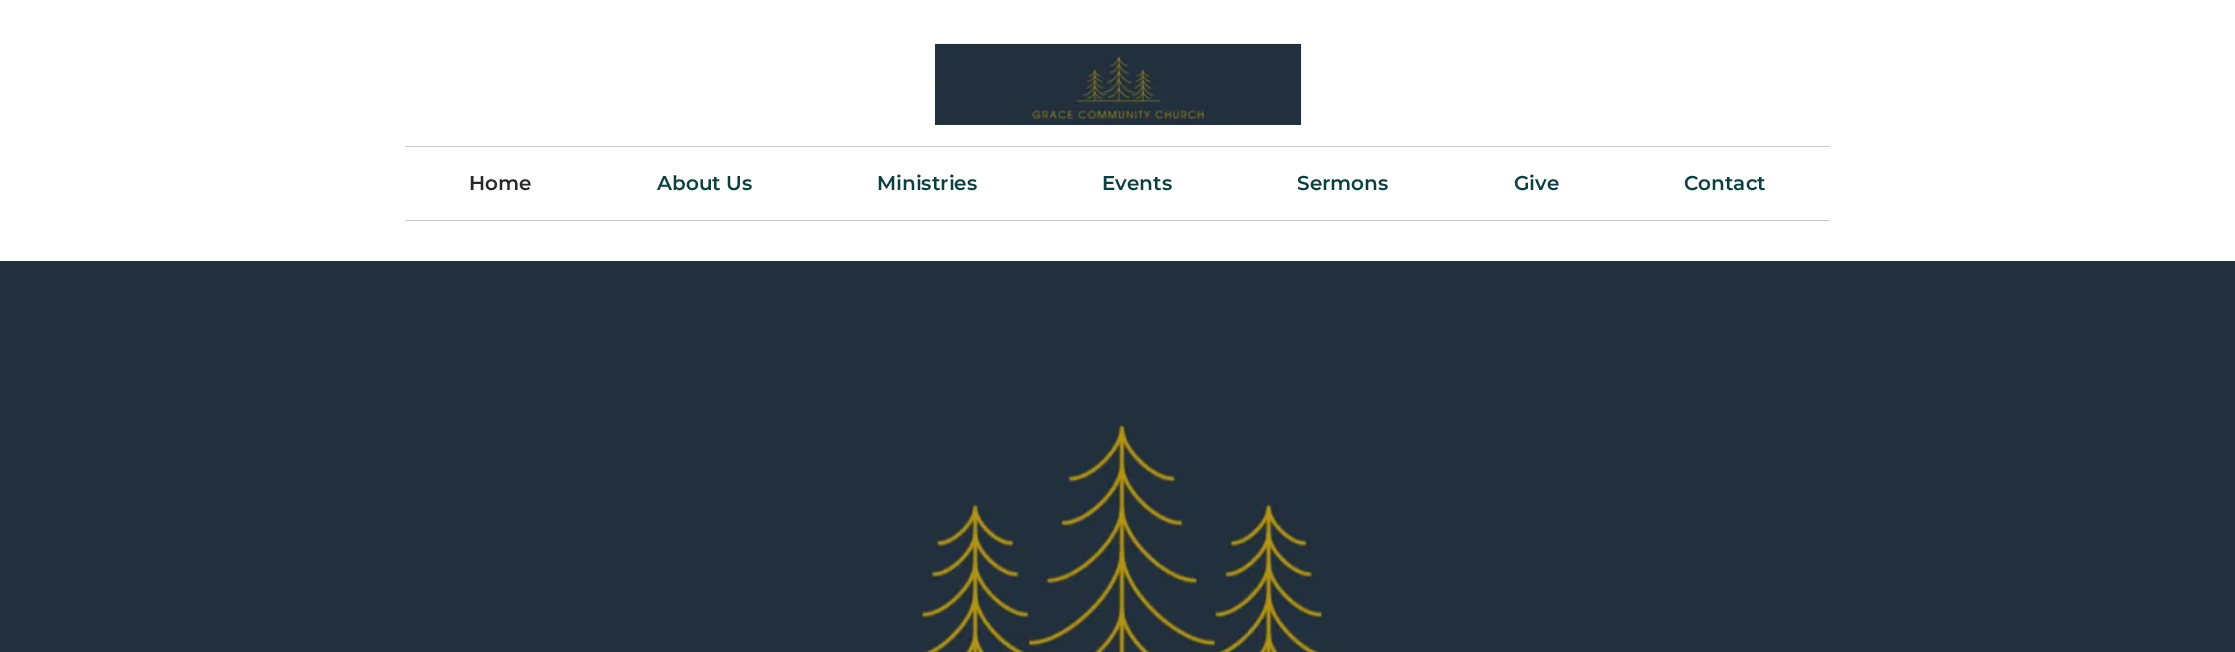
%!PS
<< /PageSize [2235 652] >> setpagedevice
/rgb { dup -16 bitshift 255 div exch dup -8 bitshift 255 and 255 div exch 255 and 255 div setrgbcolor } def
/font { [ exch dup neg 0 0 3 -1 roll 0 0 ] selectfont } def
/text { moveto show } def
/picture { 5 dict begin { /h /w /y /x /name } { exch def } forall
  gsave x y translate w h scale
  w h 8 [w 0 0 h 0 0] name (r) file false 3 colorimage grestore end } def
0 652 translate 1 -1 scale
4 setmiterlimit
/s1 { /Montserrat-Thin 20 font 16#292929 rgb } def
/s2 { /Montserrat-Thin 20 font 16#0D3F40 rgb } def
16#FFFFFF rgb
0 0 2235 652 rectfill
(pic1.raw) 935 43 367 82 picture
16#C8C8C8 rgb
405 146 1425 1 rectfill
s1
(Home) 469 190 text
s2
(About Us) 657 190 text
(Ministries) 877 190 text
(Events) 1102 190 text
(Sermons) 1297 190 text
(Give) 1514 190 text
(Contact) 1684 190 text
16#C8C8C8 rgb
405 220 1425 1 rectfill
(pic2.raw) 0 261 2235 391 picture
showpage
